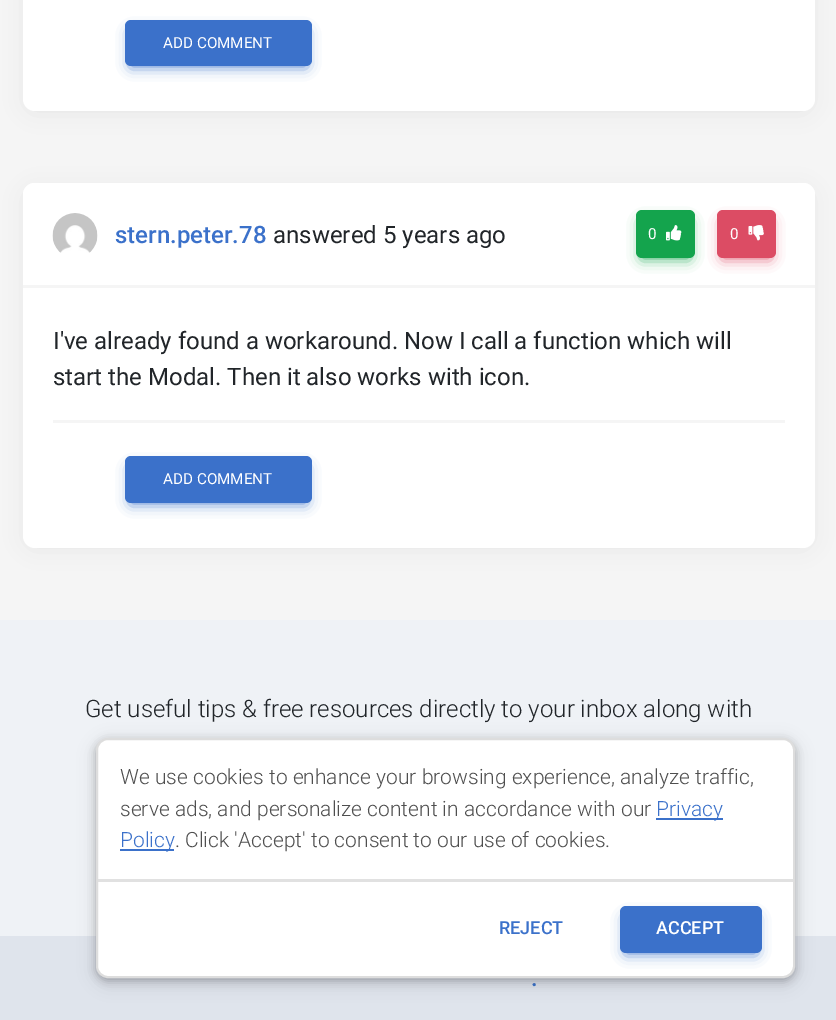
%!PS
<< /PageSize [836 1020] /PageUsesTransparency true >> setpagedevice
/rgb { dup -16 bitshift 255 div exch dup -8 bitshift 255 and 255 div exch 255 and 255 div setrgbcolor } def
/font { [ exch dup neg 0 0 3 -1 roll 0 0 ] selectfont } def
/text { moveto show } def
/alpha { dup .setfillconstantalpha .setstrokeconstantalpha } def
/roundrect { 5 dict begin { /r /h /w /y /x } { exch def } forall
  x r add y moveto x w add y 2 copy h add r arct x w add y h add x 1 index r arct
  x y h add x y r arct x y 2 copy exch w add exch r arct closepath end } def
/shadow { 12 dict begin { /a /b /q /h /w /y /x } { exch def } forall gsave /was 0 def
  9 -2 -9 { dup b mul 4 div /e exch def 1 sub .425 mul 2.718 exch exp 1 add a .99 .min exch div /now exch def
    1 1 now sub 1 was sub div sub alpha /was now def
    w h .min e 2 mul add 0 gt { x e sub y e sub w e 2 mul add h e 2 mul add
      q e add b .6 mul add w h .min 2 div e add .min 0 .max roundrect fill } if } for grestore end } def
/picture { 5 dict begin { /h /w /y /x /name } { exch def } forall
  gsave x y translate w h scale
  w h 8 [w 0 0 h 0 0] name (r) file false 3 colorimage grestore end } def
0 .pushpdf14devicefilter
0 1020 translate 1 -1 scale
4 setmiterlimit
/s1 { /Roboto-Regular 15.25 font 16#FFFFFF rgb } def
/s2 { /Roboto-Medium 24 font 16#3B71CA rgb } def
/s3 { /Roboto-Regular 24 font 16#212529 rgb } def
/s4 { /Roboto-Light 24 font 16#212529 rgb } def
/s5 { /Roboto-Light 21 font 16#4F4F4F rgb } def
/s6 { /Roboto-Light 21 font 16#3B71CA rgb } def
/s7 { /Roboto-Medium 18 font 16#3B71CA rgb } def
/s8 { /Roboto-Medium 18 font 16#FFFFFF rgb } def
16#F5F5F5 rgb
0 0 836 1020 rectfill
16#000000 rgb
27 -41 783 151 8 11 0.07 shadow
16#FFFFFF rgb
23 -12 792 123 12 roundrect fill
16#3B71CA rgb
131 32 175 34 0 7 1 shadow
125 20 187 46 6 roundrect fill
s1
(ADD COMMENT) 163 48 text
16#000000 rgb
27 191 783 355 8 11 0.07 shadow
16#FFFFFF rgb
23 183 792 365 12 roundrect fill
23 183 792 102 12 roundrect fill
(pic1.raw) 52 213 46 40 picture
s2
(stern.peter.78) 115 243 text
s3
(answered 5 years ago) 273 243 text
16#14A44D rgb
642 222 47 36 0 7 1 shadow
636 210 59 48 6 roundrect fill
s1
(0) 648 239 text
(pic2.raw) 666 225 16 16 picture
16#DC4C64 rgb
723 222 47 36 0 7 1 shadow
717 210 59 48 6 roundrect fill
s1
(0) 730 239 text
(pic3.raw) 748 225 16 16 picture
16#F5F5F5 rgb
23 285 792 3 rectfill
s3
(I've already found a workaround. Now I call a function which will) 53 349 text
(start the Modal. Then it also works with icon.) 53 385 text
16#F5F5F5 rgb
53 420 732 3 rectfill
16#3B71CA rgb
131 468 175 35 0 7 1 shadow
125 456 187 47 6 roundrect fill
s1
(ADD COMMENT) 163 484 text
16#EFF2F6 rgb
0 620 836 316 rectfill
s4
(Get useful tips & free resources directly to your inbox along with) 85 717 text
16#DFE4EC rgb
0 936 836 84 rectfill
s2
(.) 531 986 text
16#000000 rgb
89 735 714 255 20 7.5 0.05 shadow
96 741 699 240 12 4 0.25 shadow
16#FFFFFF rgb
97 739 697 238 11 roundrect gsave fill grestore
16#DDDDDD rgb
2 setlinewidth
stroke
s5
(We use cookies to enhance your browsing experience, analyze traffic,) 120 784 text
(serve ads, and personalize content in accordance with our) 120 816 text
16#3B71CA rgb
656 818 67 2 rectfill
(Privacy) 656 816 text
120 849 54 2 rectfill
(Policy) 120 847 text
s5
(. Click 'Accept' to consent to our use of cookies.) 175 847 text
0.91 alpha
16#DEDEDE rgb
98 879 696 3 rectfill
1 alpha
s7
(REJECT) 499 934 text
626 918 130 35 0 7 1 shadow
620 906 142 47 6 roundrect fill
s8
(ACCEPT) 656 934 text
.poppdf14devicefilter showpage
